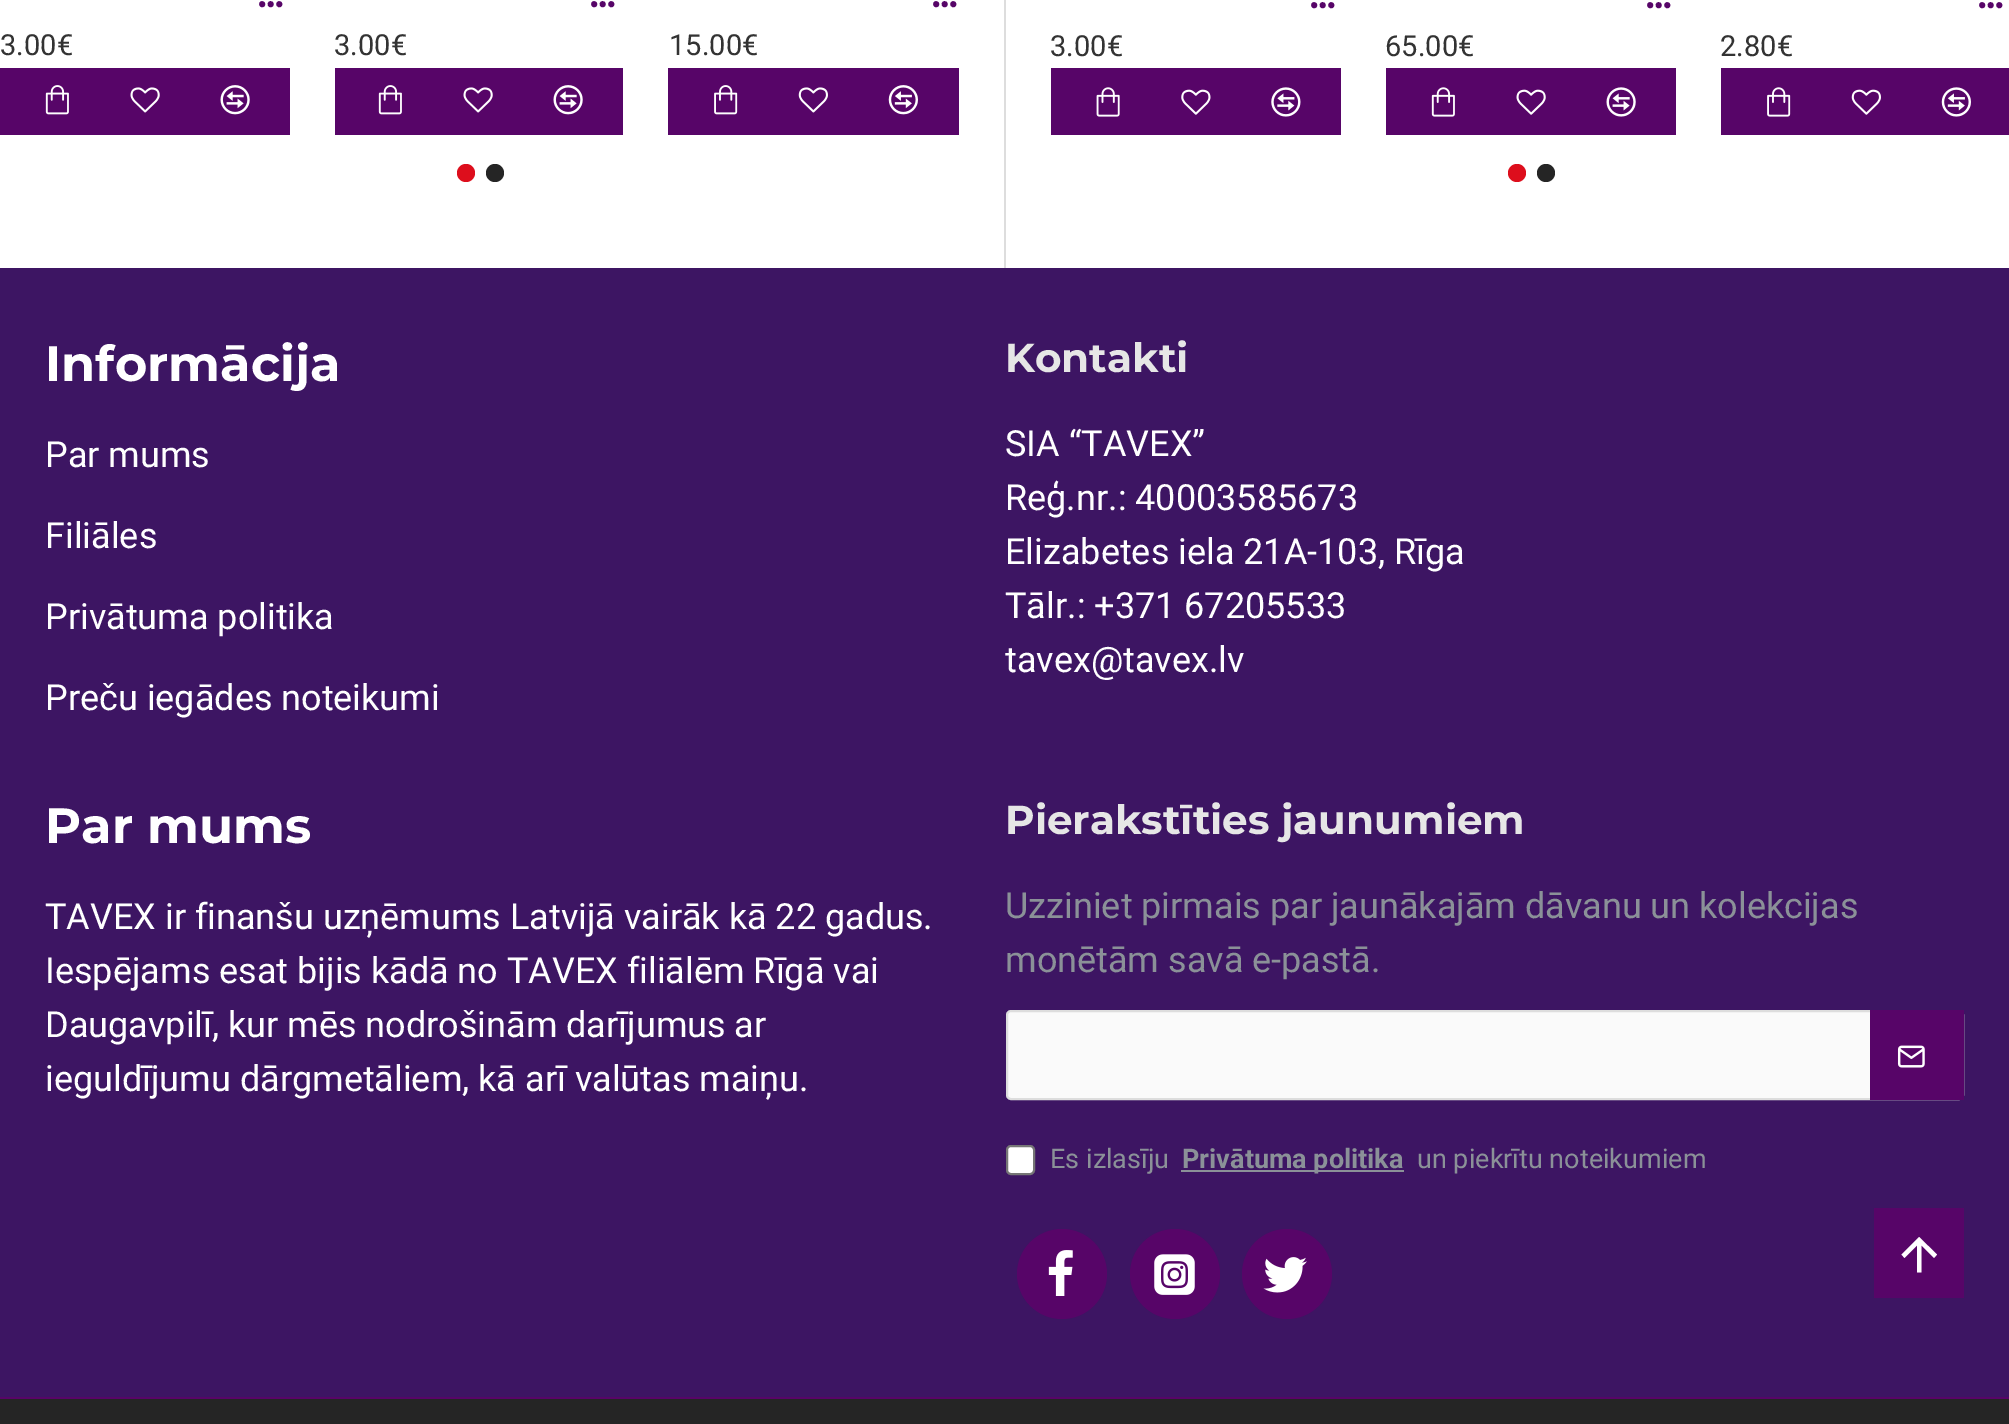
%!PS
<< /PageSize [2009 1424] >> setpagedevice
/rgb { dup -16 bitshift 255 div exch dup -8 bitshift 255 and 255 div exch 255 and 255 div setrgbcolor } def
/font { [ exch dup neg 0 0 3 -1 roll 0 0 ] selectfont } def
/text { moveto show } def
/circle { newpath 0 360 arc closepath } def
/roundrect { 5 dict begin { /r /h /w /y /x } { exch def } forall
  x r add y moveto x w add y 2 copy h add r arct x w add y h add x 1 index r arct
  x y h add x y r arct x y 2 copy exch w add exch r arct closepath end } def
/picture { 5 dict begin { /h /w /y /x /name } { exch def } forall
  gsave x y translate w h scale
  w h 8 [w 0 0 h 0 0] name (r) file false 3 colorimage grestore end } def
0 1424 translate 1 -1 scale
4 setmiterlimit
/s1 { /Montserrat-Bold 32 font 16#570568 rgb } def
/s2 { /Roboto-Regular 29 font 16#333333 rgb } def
/s3 { /Montserrat-Bold 49.5 font 16#FFFFFF rgb } def
/s4 { /Roboto-Regular 36 font 16#FFFFFF rgb } def
/s5 { /Montserrat-Bold 40.5 font 16#E6E6E6 rgb } def
/s6 { /Roboto-Regular 36 font 16#8B9198 rgb } def
/s7 { /Roboto-Regular 27 font 16#8B9198 rgb } def
/s8 { /Roboto-Bold 27 font 16#8B9198 rgb } def
16#FFFFFF rgb
0 0 2009 1424 rectfill
16#DDDDDD rgb
1004 0 2 268 rectfill
s1
(…) 258 7 text
s2
(3.00€) 0 55 text
16#570568 rgb
0 68 290 67 rectfill
(pic1.raw) 45 85 24 30 picture
(pic2.raw) 130 87 30 26 picture
(pic3.raw) 220 85 30 30 picture
s1
(…) 590 7 text
s2
(3.00€) 334 55 text
16#570568 rgb
335 68 288 67 rectfill
(pic1.raw) 378 85 24 30 picture
(pic2.raw) 463 87 30 26 picture
(pic3.raw) 553 85 30 30 picture
s1
(…) 932 7 text
s2
(15.00€) 669 55 text
16#570568 rgb
668 68 291 67 rectfill
(pic4.raw) 714 85 24 30 picture
(pic5.raw) 798 87 30 26 picture
(pic6.raw) 888 85 30 30 picture
16#DD0E1C rgb
466 173 9 circle fill
16#252525 rgb
495 173 9 circle fill
s1
(…) 1310 8 text
s2
(3.00€) 1050 56 text
16#570568 rgb
1051 68 290 67 rectfill
(pic7.raw) 1096 87 24 30 picture
(pic8.raw) 1181 89 30 26 picture
(pic9.raw) 1271 87 30 30 picture
s1
(…) 1646 8 text
s2
(65.00€) 1385 56 text
16#570568 rgb
1386 68 290 67 rectfill
(pic10.raw) 1431 87 24 30 picture
(pic11.raw) 1516 89 30 26 picture
(pic12.raw) 1606 87 30 30 picture
s1
(…) 1978 8 text
s2
(2.80€) 1720 56 text
16#570568 rgb
1721 68 288 67 rectfill
(pic13.raw) 1767 87 24 30 picture
(pic14.raw) 1851 89 30 26 picture
(pic15.raw) 1941 87 30 30 picture
16#DD0E1C rgb
1517 173 9 circle fill
16#252525 rgb
1546 173 9 circle fill
0 1399 2009 25 rectfill
16#3D1563 rgb
0 268 2009 1129 rectfill
s3
(Informācija) 45 381 text
s4
(Par mums) 45 467 text
(Filiāles) 45 548 text
(Privātuma politika) 45 629 text
(Preču iegādes noteikumi) 45 710 text
s5
(Kontakti) 1005 372 text
s4
(SIA “TAVEX”) 1005 456 text
(Reģ.nr.: 40003585673) 1005 510 text
(Elizabetes iela 21A-103, Rīga) 1005 564 text
(Tālr.: +371 67205533) 1005 618 text
(tavex@tavex.lv) 1005 672 text
s3
(Par mums) 45 843 text
s4
(TAVEX ir finanšu uzņēmums Latvijā vairāk kā 22 gadus.) 45 929 text
(Iespējams esat bijis kādā no TAVEX filiālēm Rīgā vai) 45 983 text
(Daugavpilī, kur mēs nodrošinām darījumus ar) 45 1037 text
(ieguldījumu dārgmetāliem, kā arī valūtas maiņu.) 45 1091 text
s5
(Pierakstīties jaunumiem) 1005 834 text
s6
(Uzziniet pirmais par jaunākajām dāvanu un kolekcijas) 1005 918 text
(monētām savā e-pastā.) 1005 972 text
16#FAFAFA rgb
1007 1011 956 88 4 roundrect gsave fill grestore
16#DDDDDD rgb
2 setlinewidth
stroke
16#570568 rgb
1870 1010 94 90 rectfill
(pic16.raw) 1897 1045 28 23 picture
16#FFFFFF rgb
1007 1146 27 28 4 roundrect gsave fill grestore
16#767676 rgb
stroke
s7
(Es izlasīju) 1050 1168 text
1181 1170 223 2 rectfill
s8
(Privātuma politika) 1182 1168 text
s7
(un piekrītu noteikumiem) 1417 1168 text
16#570568 rgb
1062 1274 45 circle fill
(pic17.raw) 1048 1250 25 46 picture
1175 1274 45 circle fill
(pic18.raw) 1154 1254 41 41 picture
1287 1274 45 circle fill
(pic19.raw) 1263 1257 44 36 picture
0 1397 2009 2 rectfill
1874 1208 90 90 rectfill
16#FFFFFF rgb
1901.5 1254.5 moveto 1919 1237 lineto 1937 1254.5 lineto 1934 1258 lineto 1921.5 1245.5 lineto 1921.5 1272.5 lineto 1917 1272.5 lineto 1917 1245.5 lineto 1904.5 1258 lineto closepath fill
showpage
